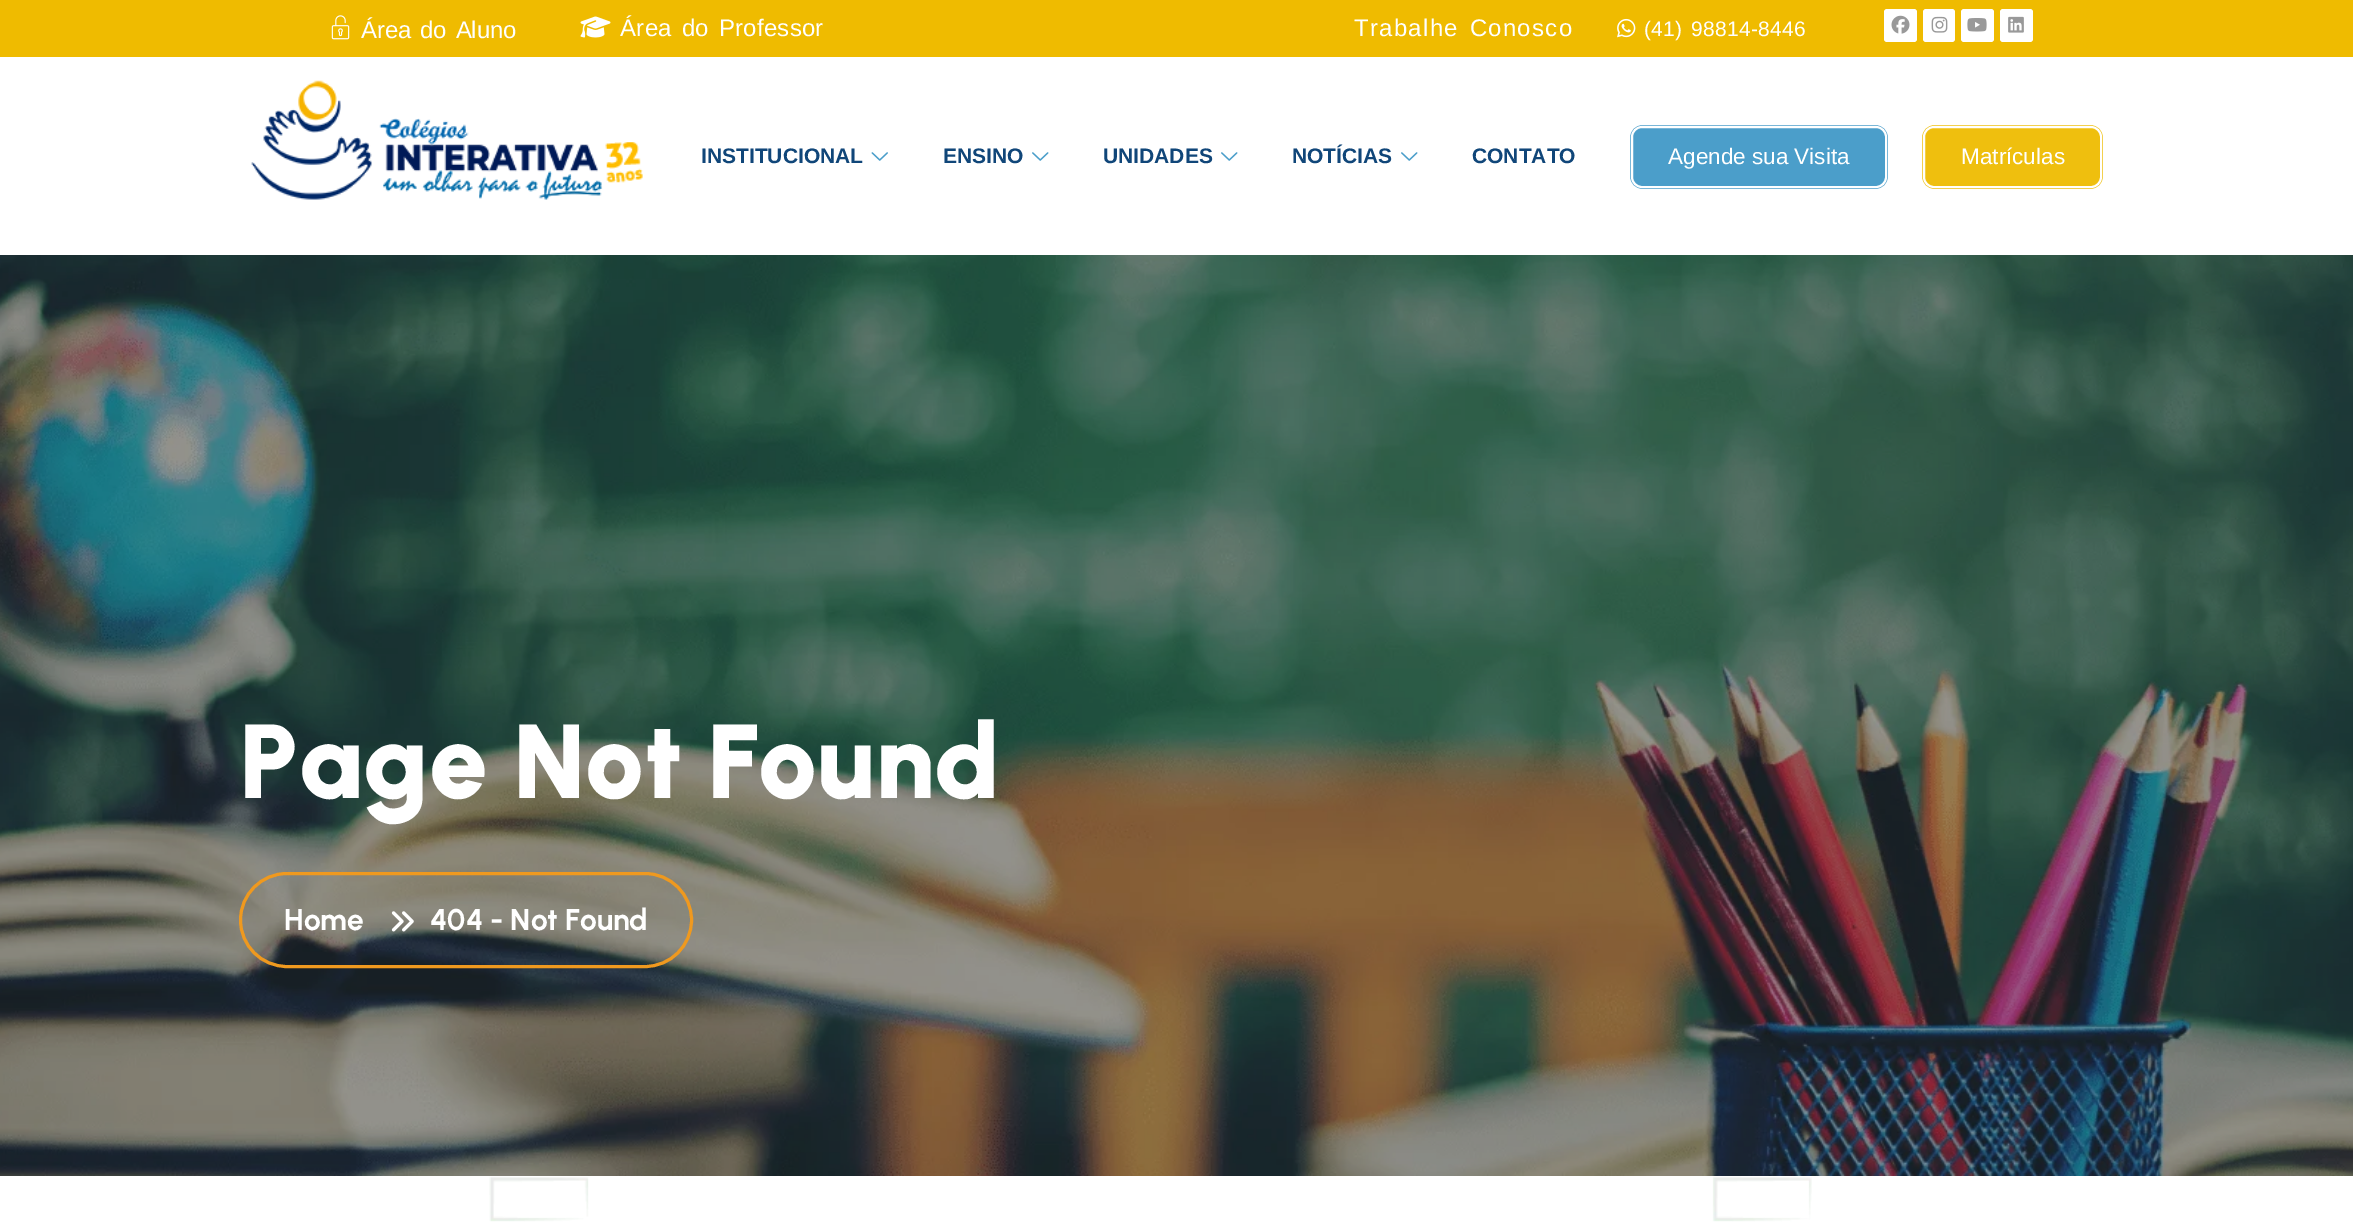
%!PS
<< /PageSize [2353 1225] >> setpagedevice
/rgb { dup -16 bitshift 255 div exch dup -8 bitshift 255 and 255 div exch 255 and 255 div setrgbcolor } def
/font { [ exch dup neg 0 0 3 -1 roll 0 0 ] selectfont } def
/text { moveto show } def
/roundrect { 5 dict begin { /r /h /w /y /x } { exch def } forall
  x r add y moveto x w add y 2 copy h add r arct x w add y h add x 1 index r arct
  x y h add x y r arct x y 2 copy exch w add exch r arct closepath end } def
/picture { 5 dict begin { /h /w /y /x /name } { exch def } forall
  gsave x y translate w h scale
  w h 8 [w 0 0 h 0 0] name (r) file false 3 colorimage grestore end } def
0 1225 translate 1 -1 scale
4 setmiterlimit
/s1 { /LiberationSans-Bold 21 font 16#104679 rgb } def
/s2 { /LiberationSans-Regular 22.5 font 16#FFFFFF rgb } def
/s3 { /Urbanist-Black 105 font 16#FFFFFF rgb } def
/s4 { /Urbanist-Bold 30 font 16#FFFFFF rgb } def
16#FFFFFF rgb
0 0 2353 1225 rectfill
16#EFBB00 rgb
0 0 2353 57 rectfill
(pic1.raw) 331 15 19 25 picture
/LiberationSans-Regular 24 font
16#FFFFFF rgb
361 38 moveto 3 0 32 -0.25 0 (Área do Aluno) awidthshow
(pic2.raw) 580 16 31 22 picture
620 36 moveto 3 0 32 0.25 0 (Área do Professor) awidthshow
1354 36 moveto 3 0 32 1.25 0 (Trabalhe Conosco) awidthshow
(pic3.raw) 1617 18 19 20 picture
/LiberationSans-Regular 21 font
1644 36 moveto 3 0 32 0.25 0 (\(41\) 98814-8446) awidthshow
1884 9 33 33 3 roundrect fill
(pic4.raw) 1891 15 19 19 picture
1923 9 32 33 3 roundrect fill
(pic5.raw) 1931 16 17 17 picture
1961 9 33 33 3 roundrect fill
(pic6.raw) 1967 18 20 14 picture
2000 9 33 33 3 roundrect fill
(pic7.raw) 2008 16 16 17 picture
(pic8.raw) 251 80 392 120 picture
s1
(INSTITUCIONAL) 701 163 text
(pic9.raw) 871 152 17 9 picture
(ENSINO) 943 163 text
(pic10.raw) 1032 152 17 9 picture
(UNIDADES) 1103 163 text
(pic10.raw) 1221 152 17 9 picture
(NOTÍCIAS) 1292 163 text
(pic10.raw) 1401 152 17 9 picture
(CONTATO) 1472 163 text
16#4B9ECA rgb
1629 124 260 66 13 roundrect gsave fill grestore
16#FFFFFF rgb
2 setlinewidth
stroke
1632 127 254 60 10 roundrect stroke
s2
(Agende sua Visita) 1668 164 text
16#EFBF0E rgb
1921 124 183 66 13 roundrect gsave fill grestore
16#FFFFFF rgb
stroke
1924 127 177 60 10 roundrect stroke
(Matrículas) 1961 164 text
(pic11.raw) 0 255 2353 921 picture
s3
(Page Not Found) 239 798 text
16#EF991F rgb
3 setlinewidth
240.5 873.5 451 93 46.5 roundrect stroke
s4
(Home) 284 930 text
(pic12.raw) 391 911 23 21 picture
(404 - Not Found) 430 930 text
(pic13.raw) 489 1176 1323 46 picture
showpage
